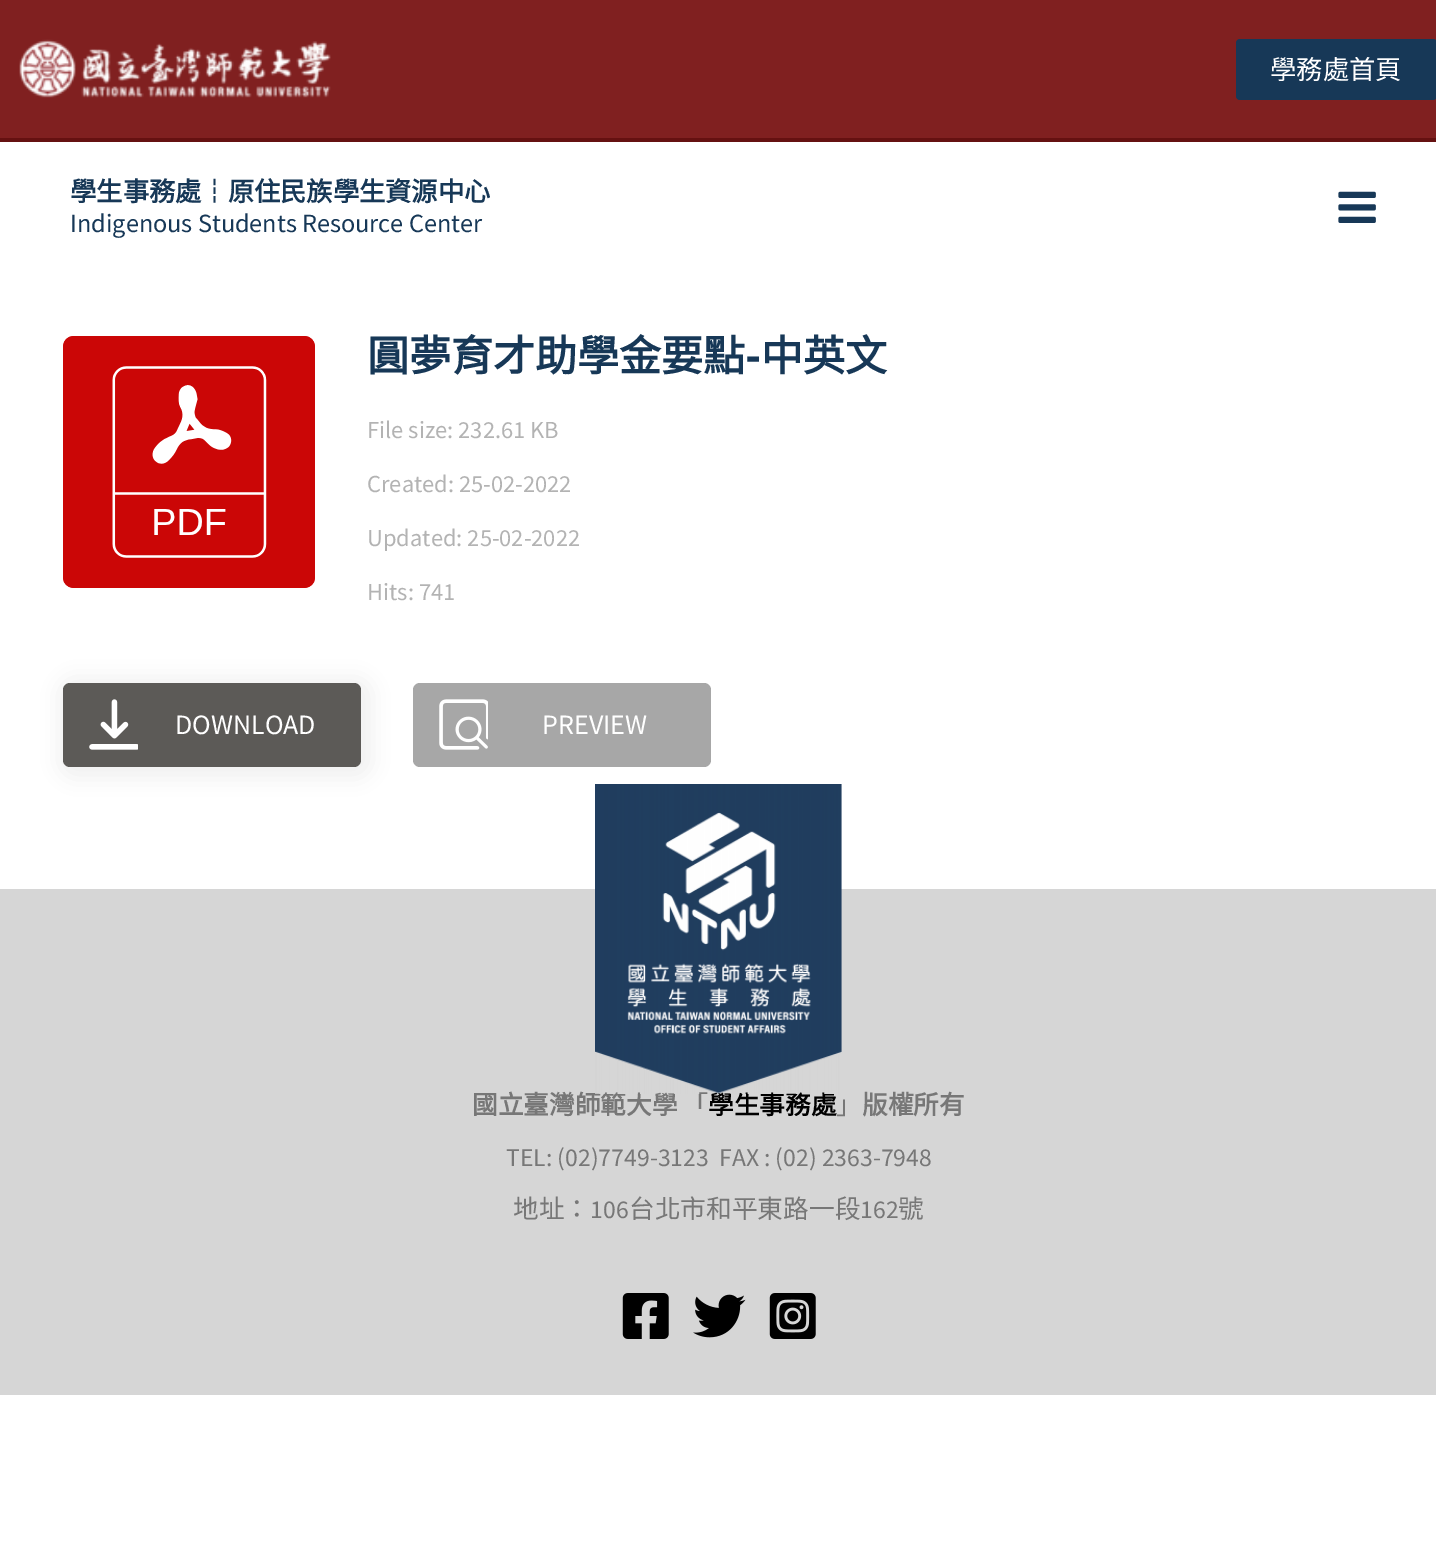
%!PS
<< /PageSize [1436 1548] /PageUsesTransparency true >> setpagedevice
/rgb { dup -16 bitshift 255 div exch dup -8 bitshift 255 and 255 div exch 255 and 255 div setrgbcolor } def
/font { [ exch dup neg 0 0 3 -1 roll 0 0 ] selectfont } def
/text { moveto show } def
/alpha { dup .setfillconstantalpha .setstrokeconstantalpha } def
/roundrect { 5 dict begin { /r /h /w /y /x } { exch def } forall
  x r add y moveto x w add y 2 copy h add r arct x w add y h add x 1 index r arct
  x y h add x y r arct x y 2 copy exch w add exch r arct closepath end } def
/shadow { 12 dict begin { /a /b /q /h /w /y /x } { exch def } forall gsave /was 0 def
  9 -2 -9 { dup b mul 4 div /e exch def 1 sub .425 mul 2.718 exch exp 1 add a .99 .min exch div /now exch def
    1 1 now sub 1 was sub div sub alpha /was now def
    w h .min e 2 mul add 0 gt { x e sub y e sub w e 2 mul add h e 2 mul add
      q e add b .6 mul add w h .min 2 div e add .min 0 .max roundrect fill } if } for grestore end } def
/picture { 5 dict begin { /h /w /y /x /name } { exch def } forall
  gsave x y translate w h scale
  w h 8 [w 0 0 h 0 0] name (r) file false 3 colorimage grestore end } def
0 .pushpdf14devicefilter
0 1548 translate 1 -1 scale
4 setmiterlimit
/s1 { /NotoSansCJKTC-Regular 26.25 font 16#FFFFFF rgb } def
/s2 { /NotoSansCJKTC-Bold 26.25 font 16#173857 rgb } def
/s3 { /SourceSansPro-Regular 26.25 font 16#173857 rgb } def
/s4 { /NotoSansCJKTC-Bold 42 font 16#173857 rgb } def
/s5 { /Montserrat-Thin 42 font 16#173857 rgb } def
/s6 { /SourceSansPro-Regular 24.5 font 16#B3B3B3 rgb } def
/s7 { /SourceSansPro-Regular 28 font 16#FFFFFF rgb } def
/s8 { /NotoSansCJKTC-Bold 25.7 font 16#000000 rgb } def
/s9 { /NotoSansCJKTC-Regular 25.7 font 16#777777 rgb } def
/s10 { /NotoSansCJKTC-Bold 25.7 font 16#777777 rgb } def
/s11 { /SourceSansPro-Regular 25.7 font 16#777777 rgb } def
16#FFFFFF rgb
0 0 1436 1548 rectfill
16#802020 rgb
0 0 1436 138 rectfill
16#651111 rgb
0 138 1436 4 rectfill
(pic1.raw) 19 39 312 59 picture
16#173857 rgb
1236 39 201 61 4 roundrect fill
s1
(學務處首頁) 1270 79 text
s2
(學生事務處┆原住民族學生資源中心) 70 201 text
s3
(Indigenous Students Resource Center) 70 232 text
(pic2.raw) 1338 191 38 32 picture
(pic3.raw) 63 336 252 252 picture
s4
(圓夢育才助學金要點) 367 371 text
s5
(-) 745 371 text
s4
(中英文) 761 371 text
s6
(File size: 232.61 KB) 367 438 text
(Created: 25-02-2022) 367 492 text
(Updated: 25-02-2022) 367 546 text
(Hits: 741) 367 600 text
16#F0F0F0 rgb
58 677 315 102 16 10.5 1 shadow
16#5C5A57 rgb
63 683 298 84 7 roundrect fill
(pic4.raw) 89 699 49 51 picture
s7
(DOWNLOAD) 175 734 text
16#A7A7A7 rgb
413 683 298 84 7 roundrect fill
(pic5.raw) 439 699 49 51 picture
s7
(PREVIEW) 542 734 text
16#D6D6D6 rgb
0 889 1436 506 rectfill
/NotoSansCJKTC-Bold 25.7 font
16#777777 rgb
472 1114 moveto -1 0 32 (國立臺灣師範大學 「) widthshow
s8
(學生事務處) 708 1114 text
(pic6.raw) 595 784 247 310 picture
s9
(」) 836 1114 text
s10
(版權所有) 862 1114 text
s11
(TEL: \(02\)7749-3123  FAX : \(02\) 2363-7948) 506 1166 text
s9
(地址：) 513 1218 text
s11
(106) 590 1218 text
s9
(台北市和平東路一段) 629 1218 text
s11
(162) 860 1218 text
s9
(號) 898 1218 text
(pic7.raw) 622 1293 47 46 picture
(pic8.raw) 693 1294 53 44 picture
(pic9.raw) 769 1293 47 46 picture
.poppdf14devicefilter showpage
